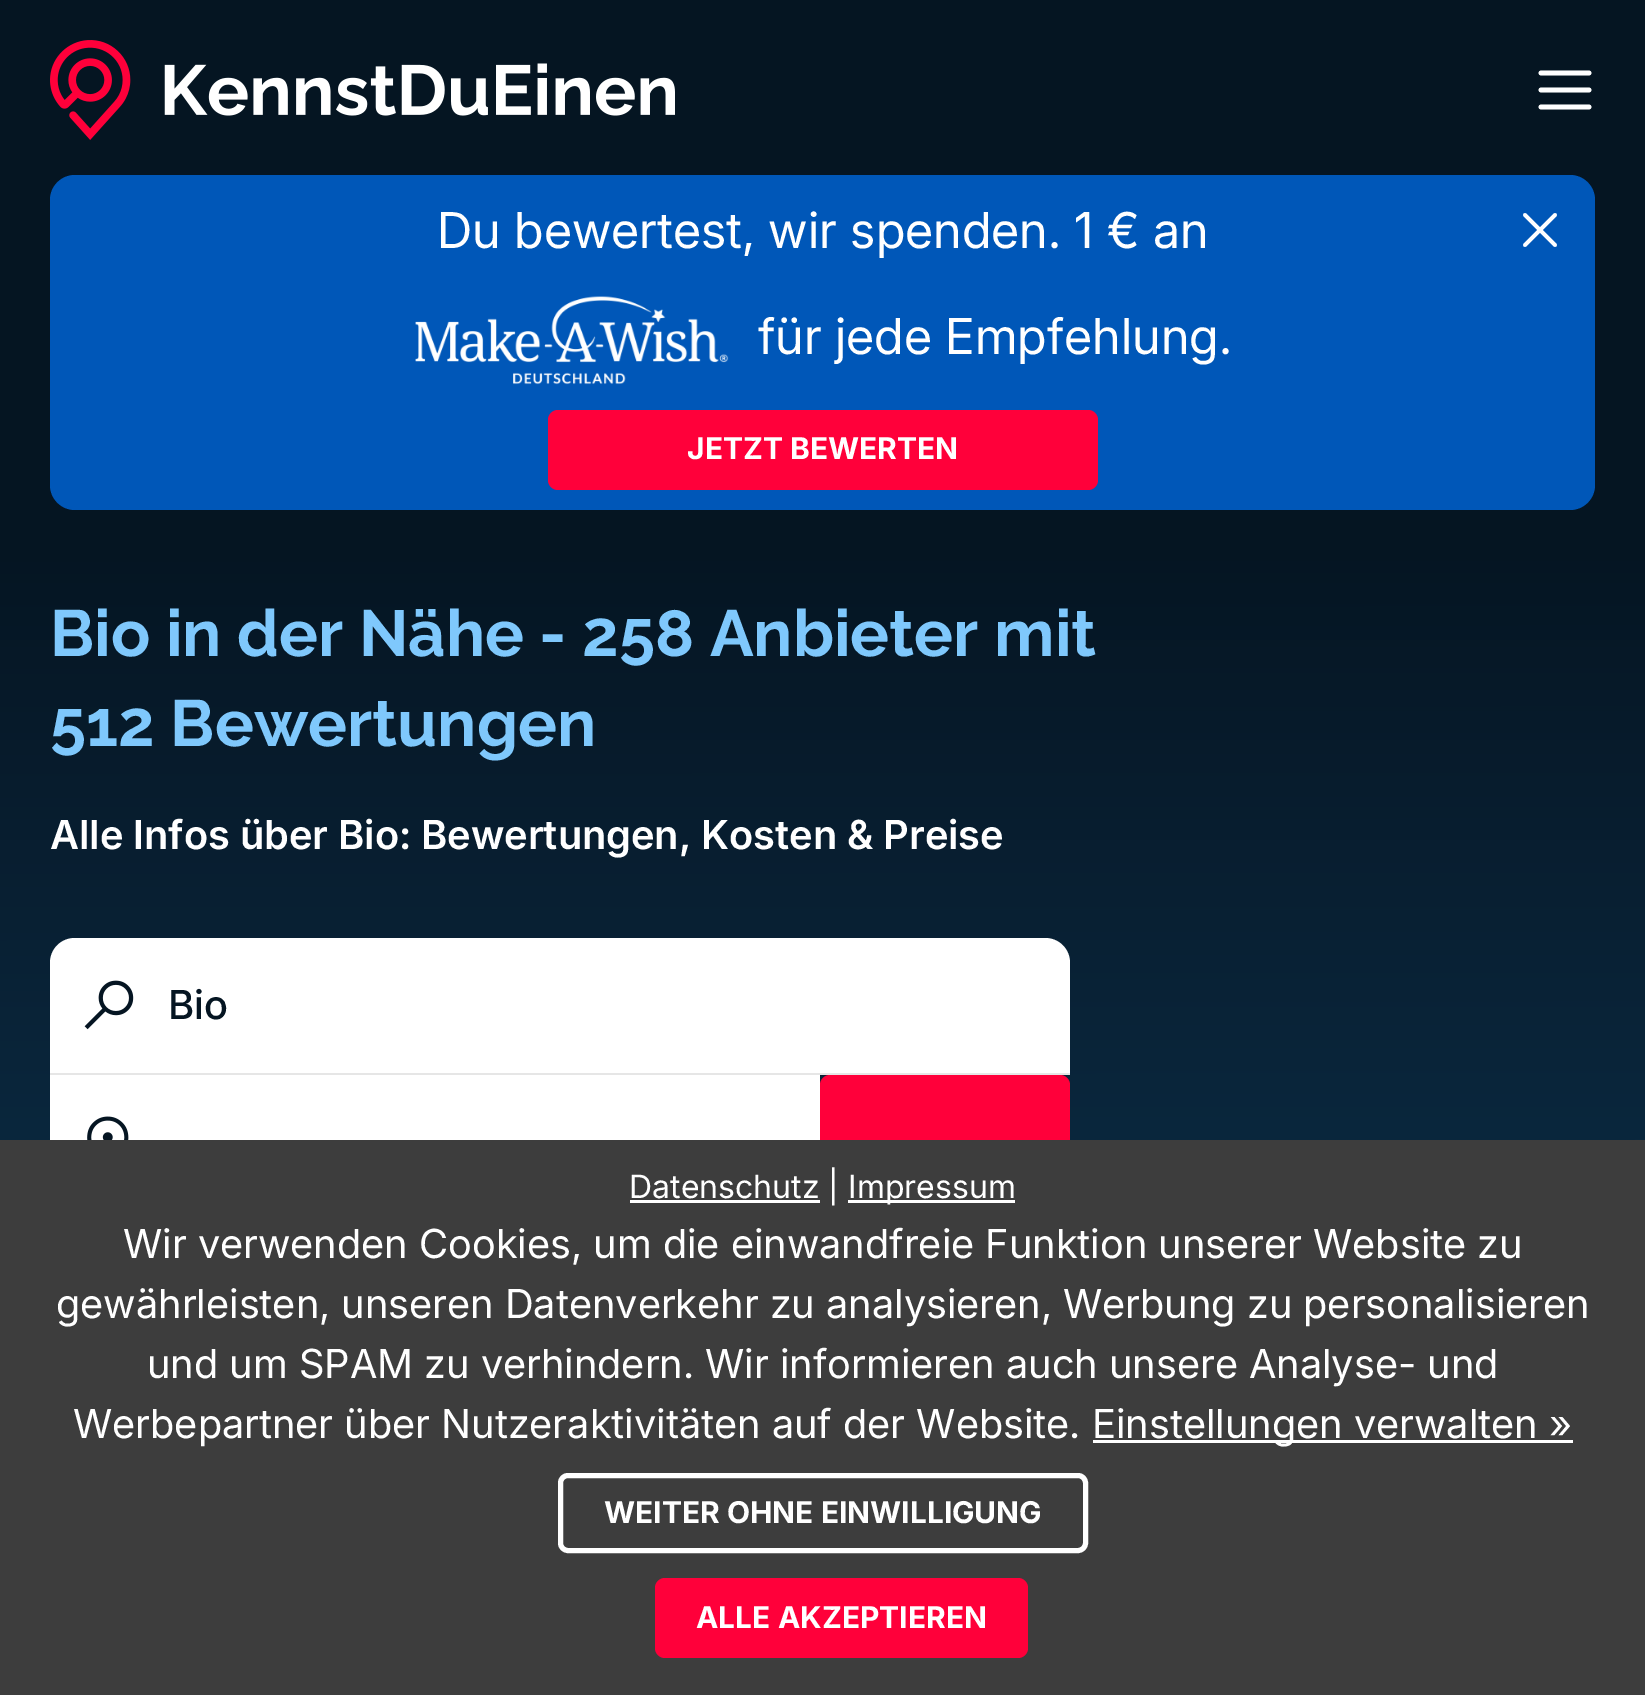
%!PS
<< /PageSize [1645 1695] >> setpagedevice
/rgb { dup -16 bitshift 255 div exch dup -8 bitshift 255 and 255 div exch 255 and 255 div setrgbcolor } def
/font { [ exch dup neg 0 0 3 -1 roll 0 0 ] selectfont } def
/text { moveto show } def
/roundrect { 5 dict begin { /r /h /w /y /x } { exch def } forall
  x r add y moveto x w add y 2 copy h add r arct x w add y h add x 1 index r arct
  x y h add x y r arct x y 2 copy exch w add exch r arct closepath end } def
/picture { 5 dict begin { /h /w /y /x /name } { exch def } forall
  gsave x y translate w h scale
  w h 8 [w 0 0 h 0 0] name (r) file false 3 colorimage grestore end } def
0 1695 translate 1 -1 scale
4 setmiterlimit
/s1 { /Inter-Regular 49.4 font 16#FFFFFF rgb } def
/s2 { /Inter-Bold 30 font 16#FFFFFF rgb } def
/s3 { /Raleway-Bold 65 font 16#7FC8FC rgb } def
/s4 { /Inter-SemiBold 40 font 16#FFFFFF rgb } def
/s5 { /Inter-Medium 40 font 16#051522 rgb } def
/s6 { /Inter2-Regular 32 font 16#FFFFFF rgb } def
/s7 { /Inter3-Regular 40 font 16#FFFFFF rgb } def
16#FFFFFF rgb
0 0 1645 1695 rectfill
16#051522 rgb
0 0 1645 540 rectfill
(pic1.raw) 50 40 625 100 picture
16#FFFFFF rgb
4.8 setlinewidth
1 setlinecap
1541 73 moveto 1589 73 lineto 1541 90 moveto 1589 90 lineto 1541 107 moveto 1589 107 lineto stroke
16#0057B8 rgb
50 175 1545 335 25 roundrect fill
s1
(Du bewertest, wir spenden. 1 € an) 437 248 text
(pic2.raw) 415 296 314 89 picture
(für jede Empfehlung.) 758 354 text
16#FF003A rgb
548 410 550 80 10 roundrect fill
s2
(JETZT BEWERTEN) 687 459 text
3.8 setlinewidth
1 setlinejoin
1525 245 moveto 1555 215 lineto 1525 215 moveto 1555 245 lineto stroke
gsave 0 540 moveto 1645 540 lineto 1645 1140 lineto 0 1140 lineto closepath clip newpath
<< /ShadingType 2 /ColorSpace /DeviceRGB /Coords [822 540 823 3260] /Extend [true true] /Function << /FunctionType 2 /Domain [0 1] /C0 [0.02 0.082 0.133] /C1 [0.106 0.404 0.62] /N 1 >> >> shfill grestore
gsave 820 1075 moveto 1070 1075 lineto 1070 1076 lineto 820 1076 lineto closepath clip newpath
<< /ShadingType 2 /ColorSpace /DeviceRGB /Coords [822 540 823 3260] /Extend [true true] /Function << /FunctionType 2 /Domain [0 1] /C0 [0.02 0.075 0.122] /C1 [0.094 0.365 0.557] /N 1 >> >> shfill grestore
s3
(Bio in der Nähe - 258 Anbieter mit) 50 656 text
(512 Bewertungen) 50 746 text
s4
(Alle Infos über Bio: Bewertungen, Kosten & Preise) 50 849 text
75 938 moveto 1045 938 lineto 1059 938 1070 949 1070 963 curveto 1070 1075 lineto 50 1075 lineto 50 963 lineto 50 949 61 938 75 938 curveto closepath fill
16#E6E6E6 rgb
50 1073 1020 2 rectfill
(pic3.raw) 84 980 50 50 picture
s5
(Bio) 168 1019 text
16#FFFFFF rgb
50 1075 770 65 rectfill
(pic4.raw) 87 1116 42 24 picture
16#FF003A rgb
830 1075 moveto 1060 1075 lineto 1065.5 1075 1070 1079.5 1070 1085 curveto 1070 1188 lineto 1070 1202 1059 1213 1045 1213 curveto 830 1213 lineto 824.5 1213 820 1208.5 820 1203 curveto 820 1085 lineto 820 1079.5 824.5 1075 830 1075 curveto closepath fill
16#3D3D3D rgb
0 1140 1645 555 rectfill
16#FFFFFF rgb
630 1200 190 3 rectfill
s6
(Datenschutz |) 629 1198 text
848 1200 167 3 rectfill
(Impressum) 848 1198 text
s7
(Wir verwenden Cookies, um die einwandfreie Funktion unserer Website zu) 123 1258 text
(gewährleisten, unseren Datenverkehr zu analysieren, Werbung zu personalisieren) 56 1318 text
(und um SPAM zu verhindern. Wir informieren auch unsere Analyse- und) 147 1378 text
(Werbepartner über Nutzeraktivitäten auf der Website.) 73 1438 text
1093 1440 480 3 rectfill
(Einstellungen verwalten ») 1092 1438 text
5 setlinewidth
0 setlinecap
0 setlinejoin
560.5 1475.5 525 75 7.5 roundrect stroke
s2
(WEITER OHNE EINWILLIGUNG) 604 1523 text
16#FF003A rgb
655 1578 373 80 10 roundrect fill
s2
(ALLE AKZEPTIEREN) 696 1628 text
showpage
